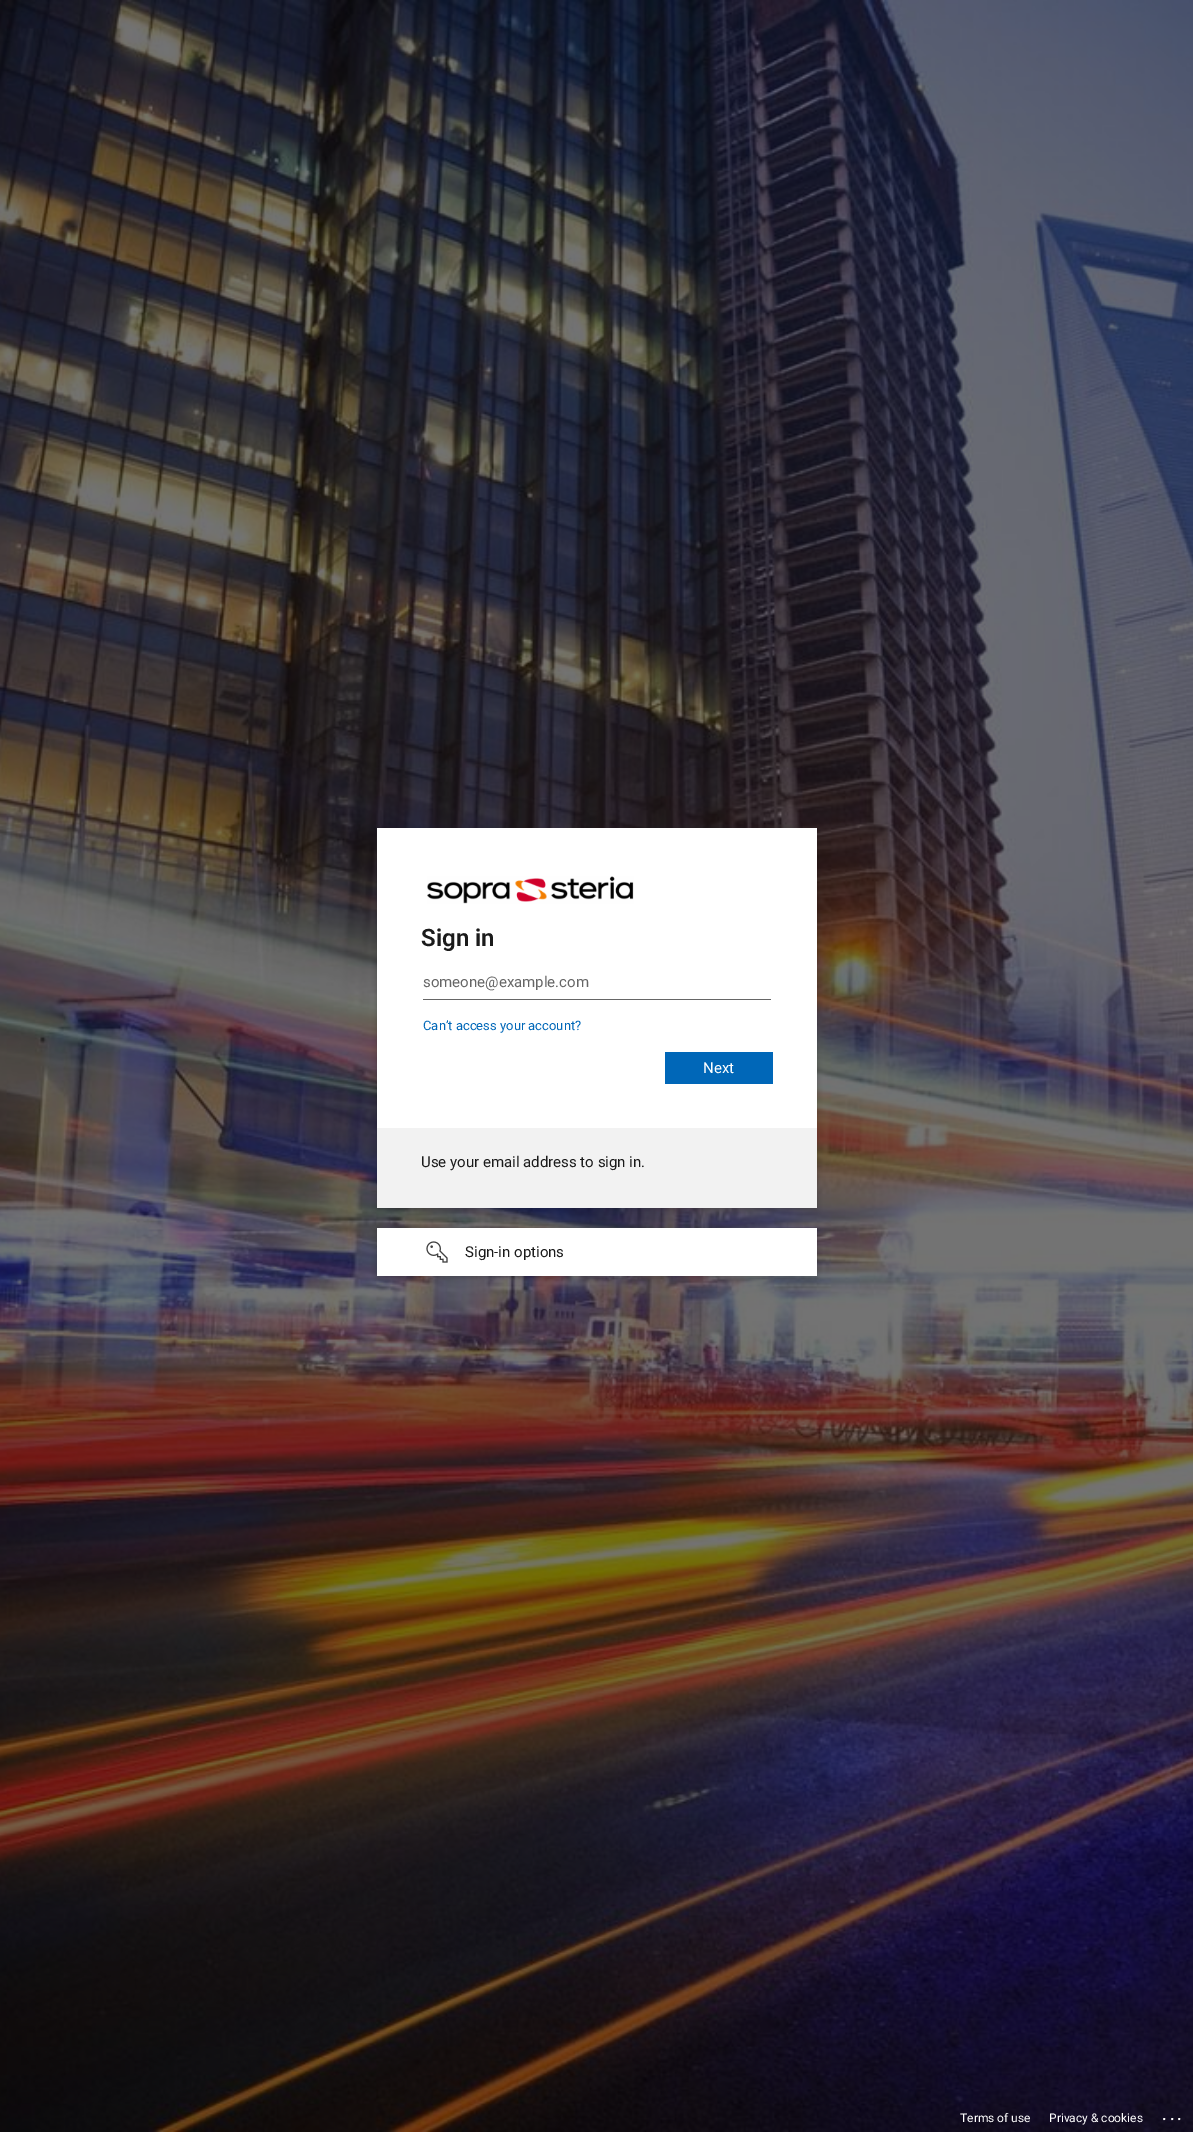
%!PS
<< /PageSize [1193 2132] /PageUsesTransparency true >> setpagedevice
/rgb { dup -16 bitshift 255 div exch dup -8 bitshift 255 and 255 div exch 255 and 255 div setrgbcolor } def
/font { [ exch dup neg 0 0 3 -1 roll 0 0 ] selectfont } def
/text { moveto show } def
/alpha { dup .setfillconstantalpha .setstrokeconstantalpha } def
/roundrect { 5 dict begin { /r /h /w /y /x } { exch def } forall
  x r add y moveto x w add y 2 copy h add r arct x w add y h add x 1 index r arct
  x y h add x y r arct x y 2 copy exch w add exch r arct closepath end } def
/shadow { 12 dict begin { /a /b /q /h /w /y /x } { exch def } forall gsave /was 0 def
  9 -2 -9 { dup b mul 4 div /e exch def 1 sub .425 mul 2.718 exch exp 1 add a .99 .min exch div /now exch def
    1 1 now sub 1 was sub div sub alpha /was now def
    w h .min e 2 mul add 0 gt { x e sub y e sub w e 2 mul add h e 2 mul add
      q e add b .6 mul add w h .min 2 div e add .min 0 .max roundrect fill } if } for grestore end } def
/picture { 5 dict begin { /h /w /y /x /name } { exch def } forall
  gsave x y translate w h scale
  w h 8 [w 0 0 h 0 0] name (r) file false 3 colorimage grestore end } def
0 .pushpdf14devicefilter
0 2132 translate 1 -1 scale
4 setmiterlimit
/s1 { /Roboto-SemiBold 24 font 16#1B1B1B rgb } def
/s2 { /Roboto-Regular 15 font 16#666666 rgb } def
/s3 { /Roboto-Regular 13 font 16#0067B8 rgb } def
/s4 { /Roboto-Regular 15 font 16#FFFFFF rgb } def
/s5 { /Roboto-Regular 15 font 16#1B1B1B rgb } def
/s6 { /Roboto-Regular 12 font 16#FFFFFF rgb } def
16#FFFFFF rgb
0 0 1193 2132 rectfill
(pic1.raw) 0 0 1193 2132 picture
16#000000 rgb
377 830 440 380 0 3 0.2 shadow
16#FFFFFF rgb
377 828 440 300 rectfill
(pic2.raw) 427 876 207 28 picture
s1
(Sign in) 421 946 text
16#666666 rgb
423 999 348 1 rectfill
s2
(someone@example.com) 423 987 text
s3
(Can’t access your account?) 423 1030 text
665 1052 108 32 rectfill
s4
(Next) 703 1073 text
16#F2F2F2 rgb
377 1128 440 80 rectfill
s5
(Use your email address to sign in.) 421 1167 text
16#000000 rgb
377 1230 440 48 0 3 0.2 shadow
16#FFFFFF rgb
377 1228 440 48 rectfill
(pic3.raw) 426 1241 22 22 picture
s5
(Sign-in options) 465 1257 text
s6
(Terms of use) 960 2122 text
(Privacy & cookies) 1049 2122 text
/Roboto-SemiBold 16 font
1162 2120 moveto 3 0 (...) ashow
.poppdf14devicefilter showpage
